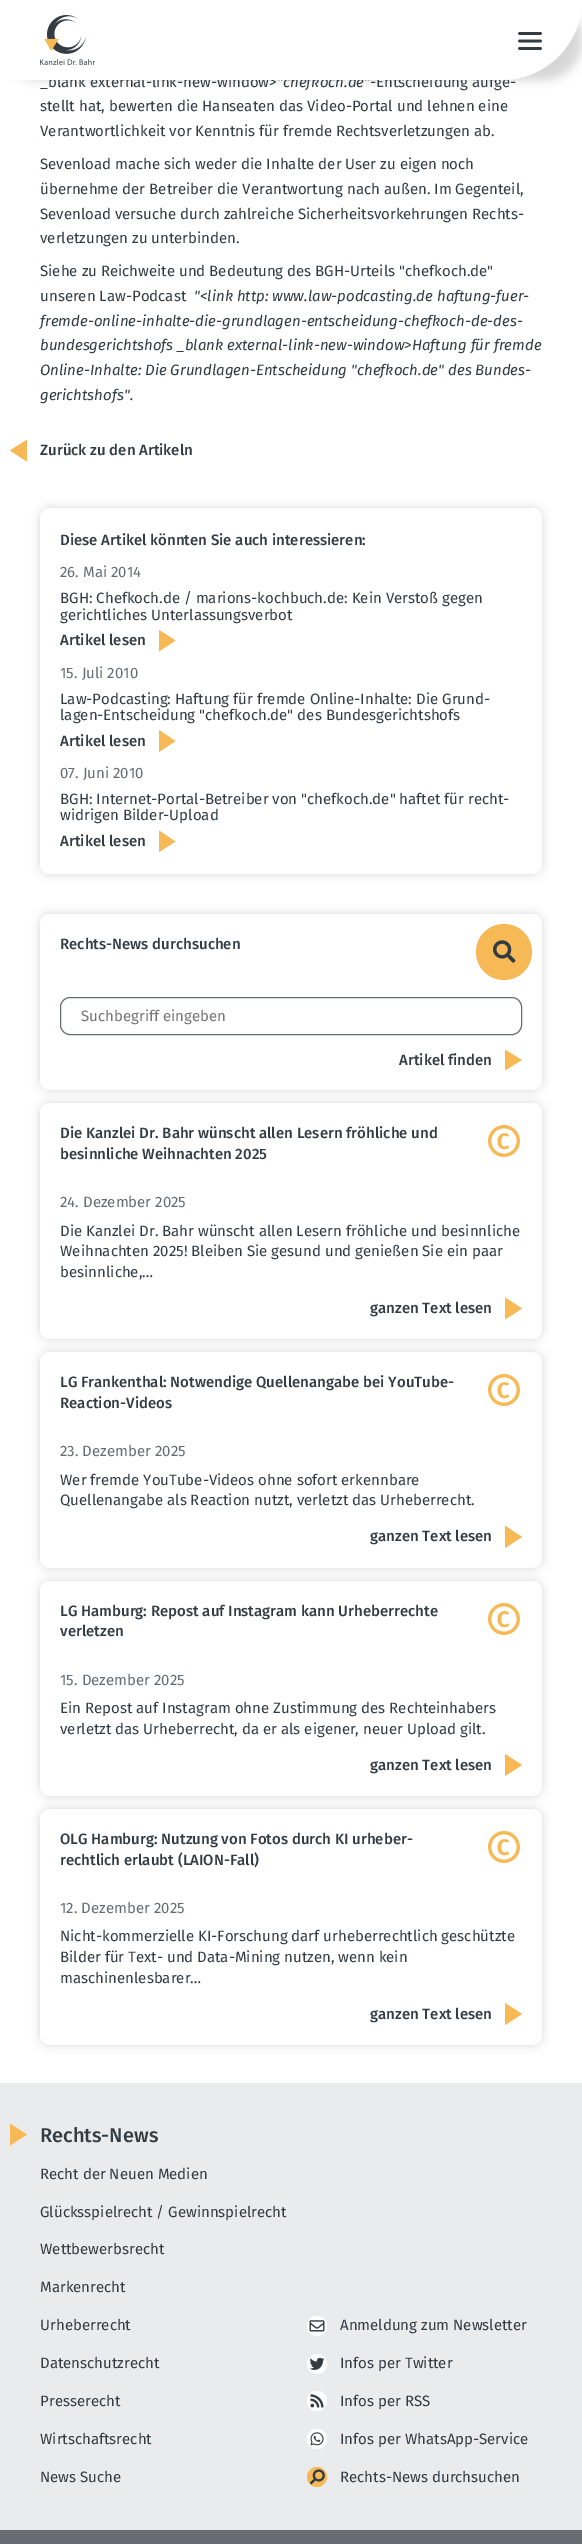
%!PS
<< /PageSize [582 2544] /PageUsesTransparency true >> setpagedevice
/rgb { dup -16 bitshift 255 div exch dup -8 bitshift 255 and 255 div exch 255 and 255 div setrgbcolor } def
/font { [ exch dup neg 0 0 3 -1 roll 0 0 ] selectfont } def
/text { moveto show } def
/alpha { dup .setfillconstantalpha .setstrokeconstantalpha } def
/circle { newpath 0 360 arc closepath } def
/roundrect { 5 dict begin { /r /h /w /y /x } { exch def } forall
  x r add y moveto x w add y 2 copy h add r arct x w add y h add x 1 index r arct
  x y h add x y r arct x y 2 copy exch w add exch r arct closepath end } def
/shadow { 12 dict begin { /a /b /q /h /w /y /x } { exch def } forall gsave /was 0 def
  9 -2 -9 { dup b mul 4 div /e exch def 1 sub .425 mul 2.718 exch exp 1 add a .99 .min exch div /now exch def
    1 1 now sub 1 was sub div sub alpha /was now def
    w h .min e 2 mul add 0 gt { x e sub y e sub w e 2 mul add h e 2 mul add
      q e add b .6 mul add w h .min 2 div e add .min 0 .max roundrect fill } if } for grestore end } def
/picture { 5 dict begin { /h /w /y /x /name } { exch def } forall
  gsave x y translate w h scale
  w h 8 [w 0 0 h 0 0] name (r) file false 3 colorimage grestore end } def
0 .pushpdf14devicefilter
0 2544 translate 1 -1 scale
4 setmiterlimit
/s1 { /FiraSans-Regular 15 font 16#333C43 rgb } def
/s2 { /FiraSans-Italic 15 font 16#333C43 rgb } def
/s3 { /FiraSans-Medium 15 font 16#333C43 rgb } def
/s4 { /FiraSans-Regular 15 font 16#666C72 rgb } def
/s5 { /FiraSans-Regular 15 font 16#757575 rgb } def
/s6 { /FiraSans-Medium 20 font 16#333C43 rgb } def
16#FFFFFF rgb
0 0 582 2544 rectfill
16#000000 rgb
0 0 582 80 80 5 0.16 shadow
s1
(_blank external-link-new-window>) 40 87 text
s2
("chefkoch.de") 277 87 text
s1
(-Entscheidung aufge-) 370 87 text
16#FFFFFF rgb
0 0 moveto 582 0 lineto 582 44 546 80 502 80 curveto 0 80 lineto closepath fill
(pic1.raw) 40 15 55 50 picture
(pic2.raw) 518 32 24 18 picture
s1
(stellt hat, bewerten die Hanseaten das Video-Portal und lehnen eine) 40 111 text
(Verantwortlichkeit vor Kenntnis für fremde Rechtsverletzungen ab.) 40 136 text
(Sevenload mache sich weder die Inhalte der User zu eigen noch) 40 169 text
(übernehme der Betreiber die Verantwortung nach außen. Im Gegenteil,) 40 194 text
(Sevenload versuche durch zahlreiche Sicherheitsvorkehrungen Rechts-) 40 219 text
(verletzungen zu unterbinden.) 40 243 text
(Siehe zu Reichweite und Bedeutung des BGH-Urteils "chefkoch.de") 40 276 text
(unseren Law-Podcast) 40 301 text
s2
("<link http: www.law-podcasting.de haftung-fuer-) 194 301 text
(fremde-online-inhalte-die-grundlagen-entscheidung-chefkoch-de-des-) 40 326 text
(bundesgerichtshofs _blank external-link-new-window>Haftung für fremde) 40 350 text
(Online-Inhalte: Die Grundlagen-Entscheidung "chefkoch.de" des Bundes-) 40 375 text
(gerichtshofs".) 40 400 text
16#F7B956 rgb
27 440 moveto 26.5 440 lineto 10 450.5 lineto 27 461.5 lineto closepath fill
s3
(Zurück zu den Artikeln) 40 455 text
16#000000 rgb
40 508 502 366 10 5 0.16 shadow
16#FFFFFF rgb
40 508 502 366 10 roundrect fill
s3
(Diese Artikel könnten Sie auch interessieren:) 60 545 text
s4
(26. Mai 2014) 60 577 text
s1
(BGH: Chefkoch.de / marions-kochbuch.de: Kein Verstoß gegen) 60 603 text
(gerichtliches Unterlassungsverbot) 60 620 text
s3
(Artikel lesen) 60 645 text
16#F7B956 rgb
159 630 moveto 175.5 640.5 lineto 159 651.5 lineto closepath fill
s4
(15. Juli 2010) 60 678 text
s1
(Law-Podcasting: Haftung für fremde Online-Inhalte: Die Grund-) 60 704 text
(lagen-Entscheidung "chefkoch.de" des Bundesgerichtshofs) 60 720 text
s3
(Artikel lesen) 60 746 text
16#F7B956 rgb
159 752 moveto 159 730 lineto 175.5 741 lineto closepath fill
s4
(07. Juni 2010) 60 778 text
s1
(BGH: Internet-Portal-Betreiber von "chefkoch.de" haftet für recht-) 60 804 text
(widrigen Bilder-Upload) 60 820 text
s3
(Artikel lesen) 60 846 text
16#F7B956 rgb
159 852 moveto 159 830.5 lineto 175.5 841.5 lineto closepath fill
16#000000 rgb
40 914 502 176 10 5 0.16 shadow
16#FFFFFF rgb
40 914 502 176 10 roundrect fill
s3
(Rechts-News durchsuchen) 60 949 text
16#F7B956 rgb
504 952 28 circle fill
(pic3.raw) 493 940 23 23 picture
16#666C72 rgb
60.5 997.5 461 37 9.5 roundrect stroke
s5
(Suchbegriff eingeben) 81 1021 text
(pic4.raw) 505 1050 17 20 picture
s3
(Artikel finden) 399 1065 text
16#000000 rgb
40 1103 502 236 10 5 0.16 shadow
16#FFFFFF rgb
40 1103 502 236 10 roundrect fill
s3
(Die Kanzlei Dr. Bahr wünscht allen Lesern fröhliche und) 60 1138 text
(besinnliche Weihnachten 2025) 60 1159 text
(pic5.raw) 488 1125 32 32 picture
s4
(24. Dezember 2025) 60 1207 text
s1
(Die Kanzlei Dr. Bahr wünscht allen Lesern fröhliche und besinnliche) 60 1236 text
(Weihnachten 2025! Bleiben Sie gesund und genießen Sie ein paar) 60 1256 text
(besinnliche,…) 60 1277 text
s3
(ganzen Text lesen) 370 1313 text
16#F7B956 rgb
505 1297.5 moveto 505 1319 lineto 505.5 1319 lineto 522 1308.5 lineto closepath fill
16#000000 rgb
40 1352 502 216 10 5 0.16 shadow
16#FFFFFF rgb
40 1352 502 216 10 roundrect fill
s3
(LG Frankenthal: Notwendige Quellenangabe bei YouTube-) 60 1387 text
(Reaction-Videos) 60 1408 text
(pic5.raw) 488 1374 32 32 picture
s4
(23. Dezember 2025) 60 1456 text
s1
(Wer fremde YouTube-Videos ohne sofort erkennbare) 60 1485 text
(Quellenangabe als Reaction nutzt, verletzt das Urheberrecht.) 60 1505 text
s3
(ganzen Text lesen) 370 1541 text
16#F7B956 rgb
505 1526 moveto 505 1548 lineto 522 1537 lineto 505.5 1526 lineto closepath fill
16#000000 rgb
40 1581 502 215 10 5 0.16 shadow
16#FFFFFF rgb
40 1581 502 215 10 roundrect fill
s3
(LG Hamburg: Repost auf Instagram kann Urheberrechte) 60 1616 text
(verletzen) 60 1636 text
(pic5.raw) 488 1603 32 32 picture
s4
(15. Dezember 2025) 60 1685 text
s1
(Ein Repost auf Instagram ohne Zustimmung des Rechteinhabers) 60 1713 text
(verletzt das Urheberrecht, da er als eigener, neuer Upload gilt.) 60 1734 text
s3
(ganzen Text lesen) 370 1770 text
16#F7B956 rgb
505 1754 moveto 505 1776 lineto 522 1765 lineto closepath fill
16#000000 rgb
40 1809 502 236 10 5 0.16 shadow
16#FFFFFF rgb
40 1809 502 236 10 roundrect fill
s3
(OLG Hamburg: Nutzung von Fotos durch KI urheber-) 60 1844 text
(rechtlich erlaubt \(LAION-Fall\)) 60 1865 text
(pic5.raw) 488 1831 32 32 picture
s4
(12. Dezember 2025) 60 1913 text
s1
(Nicht-kommerzielle KI-Forschung darf urheberrechtlich geschützte) 60 1941 text
(Bilder für Text- und Data-Mining nutzen, wenn kein) 60 1962 text
(maschinenlesbarer…) 60 1983 text
s3
(ganzen Text lesen) 370 2019 text
16#F7B956 rgb
505 2003 moveto 505 2025 lineto 522 2014 lineto closepath fill
16#EAEBEC rgb
0 2083 542 447 rectfill
542 2083 40 447 rectfill
16#F7B956 rgb
10 2124 moveto 10 2145.5 lineto 27 2134.5 lineto 10.5 2124 lineto closepath fill
s6
(Rechts-News) 40 2142 text
s1
(Recht der Neuen Medien) 40 2179 text
(Glücksspielrecht / Gewinnspielrecht) 40 2217 text
(Wettbewerbsrecht) 40 2254 text
(Markenrecht) 40 2292 text
(Urheberrecht) 40 2330 text
(Datenschutzrecht) 40 2368 text
(Presserecht) 40 2406 text
(Wirtschaftsrecht) 40 2444 text
(News Suche) 40 2482 text
16#FFFFFF rgb
317 2326 10 circle fill
(pic6.raw) 309 2320 16 12 picture
s1
(Anmeldung zum Newsletter) 340 2330 text
16#FFFFFF rgb
317 2364 10 circle fill
(pic7.raw) 309 2357 16 13 picture
s1
(Infos per Twitter) 340 2368 text
16#FFFFFF rgb
317 2401 10 circle fill
(pic8.raw) 310 2394 14 14 picture
s1
(Infos per RSS) 340 2406 text
16#FFFFFF rgb
317 2439 10 circle fill
(pic9.raw) 310 2432 14 14 picture
s1
(Infos per WhatsApp-Service) 340 2444 text
16#F7B956 rgb
317 2477 10 circle fill
(pic10.raw) 309 2469 16 16 picture
s1
(Rechts-News durchsuchen) 340 2482 text
16#666C72 rgb
0 2530 582 14 rectfill
.poppdf14devicefilter showpage
